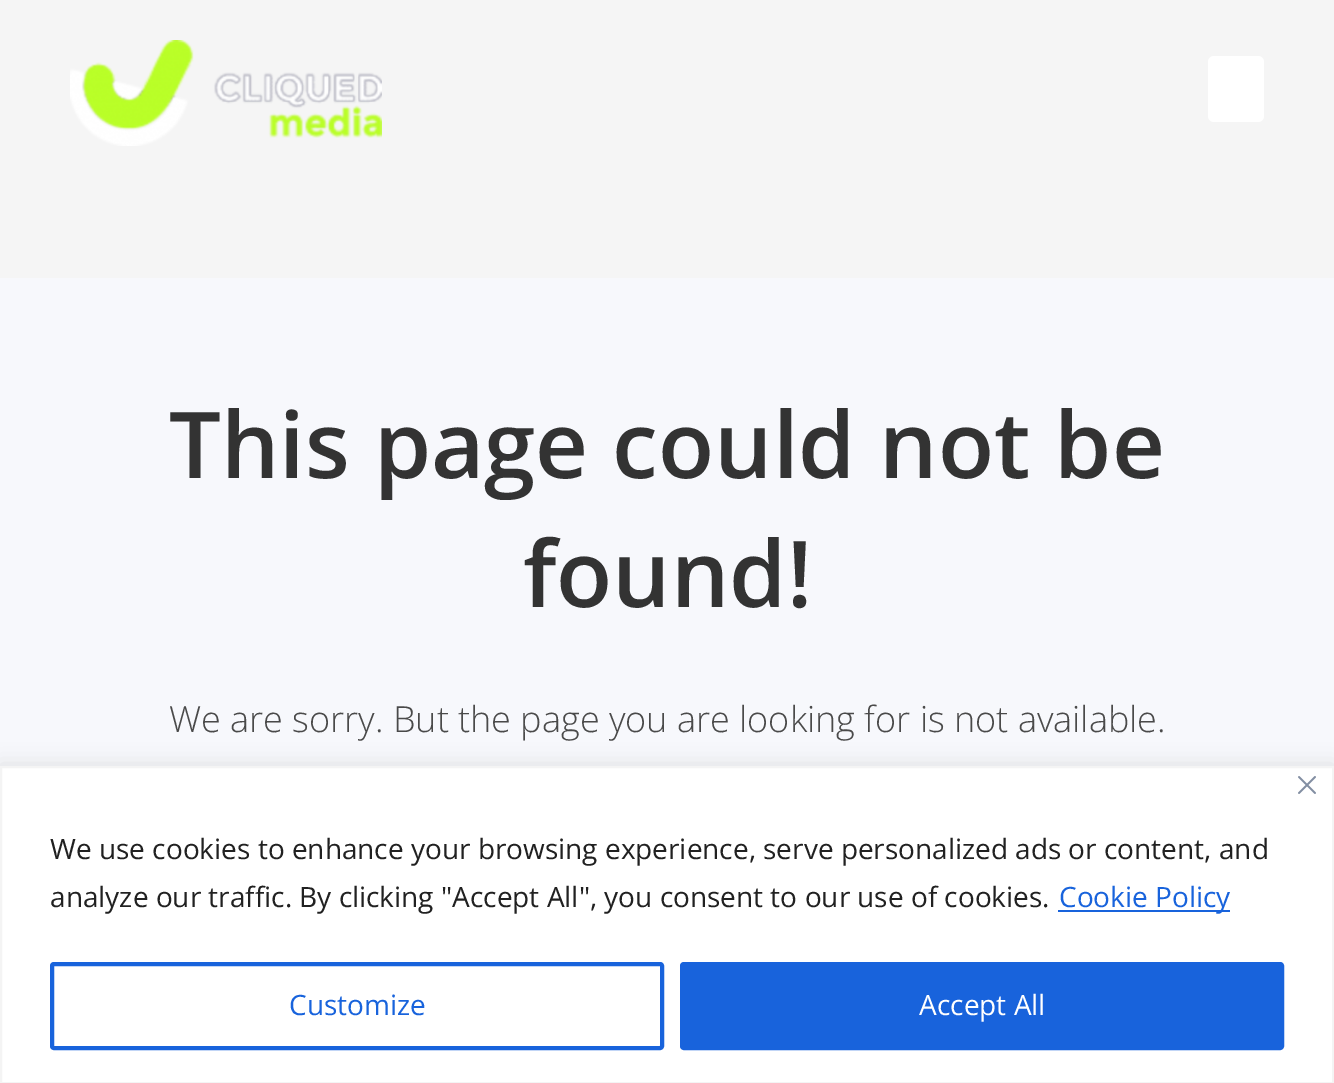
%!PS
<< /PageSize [1334 1083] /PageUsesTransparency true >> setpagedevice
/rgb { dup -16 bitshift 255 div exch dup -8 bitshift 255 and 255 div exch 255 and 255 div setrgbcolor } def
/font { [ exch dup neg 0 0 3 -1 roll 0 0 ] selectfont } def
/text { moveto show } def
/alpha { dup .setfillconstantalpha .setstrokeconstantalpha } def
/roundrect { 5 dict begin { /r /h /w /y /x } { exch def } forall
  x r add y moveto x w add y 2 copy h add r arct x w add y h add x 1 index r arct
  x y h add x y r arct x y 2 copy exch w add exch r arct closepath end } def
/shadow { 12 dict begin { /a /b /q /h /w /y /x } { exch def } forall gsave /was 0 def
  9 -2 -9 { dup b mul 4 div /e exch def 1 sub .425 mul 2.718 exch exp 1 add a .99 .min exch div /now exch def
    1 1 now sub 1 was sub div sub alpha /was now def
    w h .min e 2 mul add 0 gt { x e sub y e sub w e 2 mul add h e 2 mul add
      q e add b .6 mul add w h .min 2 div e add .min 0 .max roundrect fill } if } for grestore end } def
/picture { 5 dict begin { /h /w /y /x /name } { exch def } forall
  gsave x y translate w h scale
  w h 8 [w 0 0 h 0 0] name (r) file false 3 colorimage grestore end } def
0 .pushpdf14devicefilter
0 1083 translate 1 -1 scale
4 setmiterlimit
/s1 { /OpenSans-SemiBold 92 font 16#333333 rgb } def
/s2 { /OpenSans-Light 36 font 16#4A4A4A rgb } def
/s3 { /OpenSans-Regular 28 font 16#212121 rgb } def
/s4 { /OpenSans-Regular 28 font 16#1863DC rgb } def
/s5 { /OpenSans-Regular 28 font 16#FFFFFF rgb } def
16#F7F8FC rgb
0 0 1334 1083 rectfill
16#F5F5F5 rgb
0 0 1334 278 rectfill
(pic1.raw) 70 40 312 106 picture
16#FFFFFF rgb
1208 56 56 66 6 roundrect fill
s1
(This page could not be) 169 478 text
(found!) 523 607 text
s2
(We are sorry. But the page you are looking for is not available.) 169 732 text
16#ACABAB rgb
0 764 1334 318 0 10 0.3 shadow
16#FFFFFF rgb
1 767 moveto 1333 767 lineto 1333 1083 lineto 1 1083 lineto closepath gsave fill grestore
16#F4F4F4 rgb
2 setlinewidth
stroke
(pic2.raw) 1298 776 18 18 picture
s3
(We use cookies to enhance your browsing experience, serve personalized ads or content, and) 50 859 text
(analyze our traffic. By clicking "Accept All", you consent to our use of cookies.) 50 907 text
16#1863DC rgb
1058 910 172 2 rectfill
(Cookie Policy) 1059 907 text
4 setlinewidth
52 964 610 84 2 roundrect stroke
(Customize) 289 1015 text
682 964 600 84 2 roundrect gsave fill grestore
stroke
s5
(Accept All) 919 1015 text
.poppdf14devicefilter showpage
